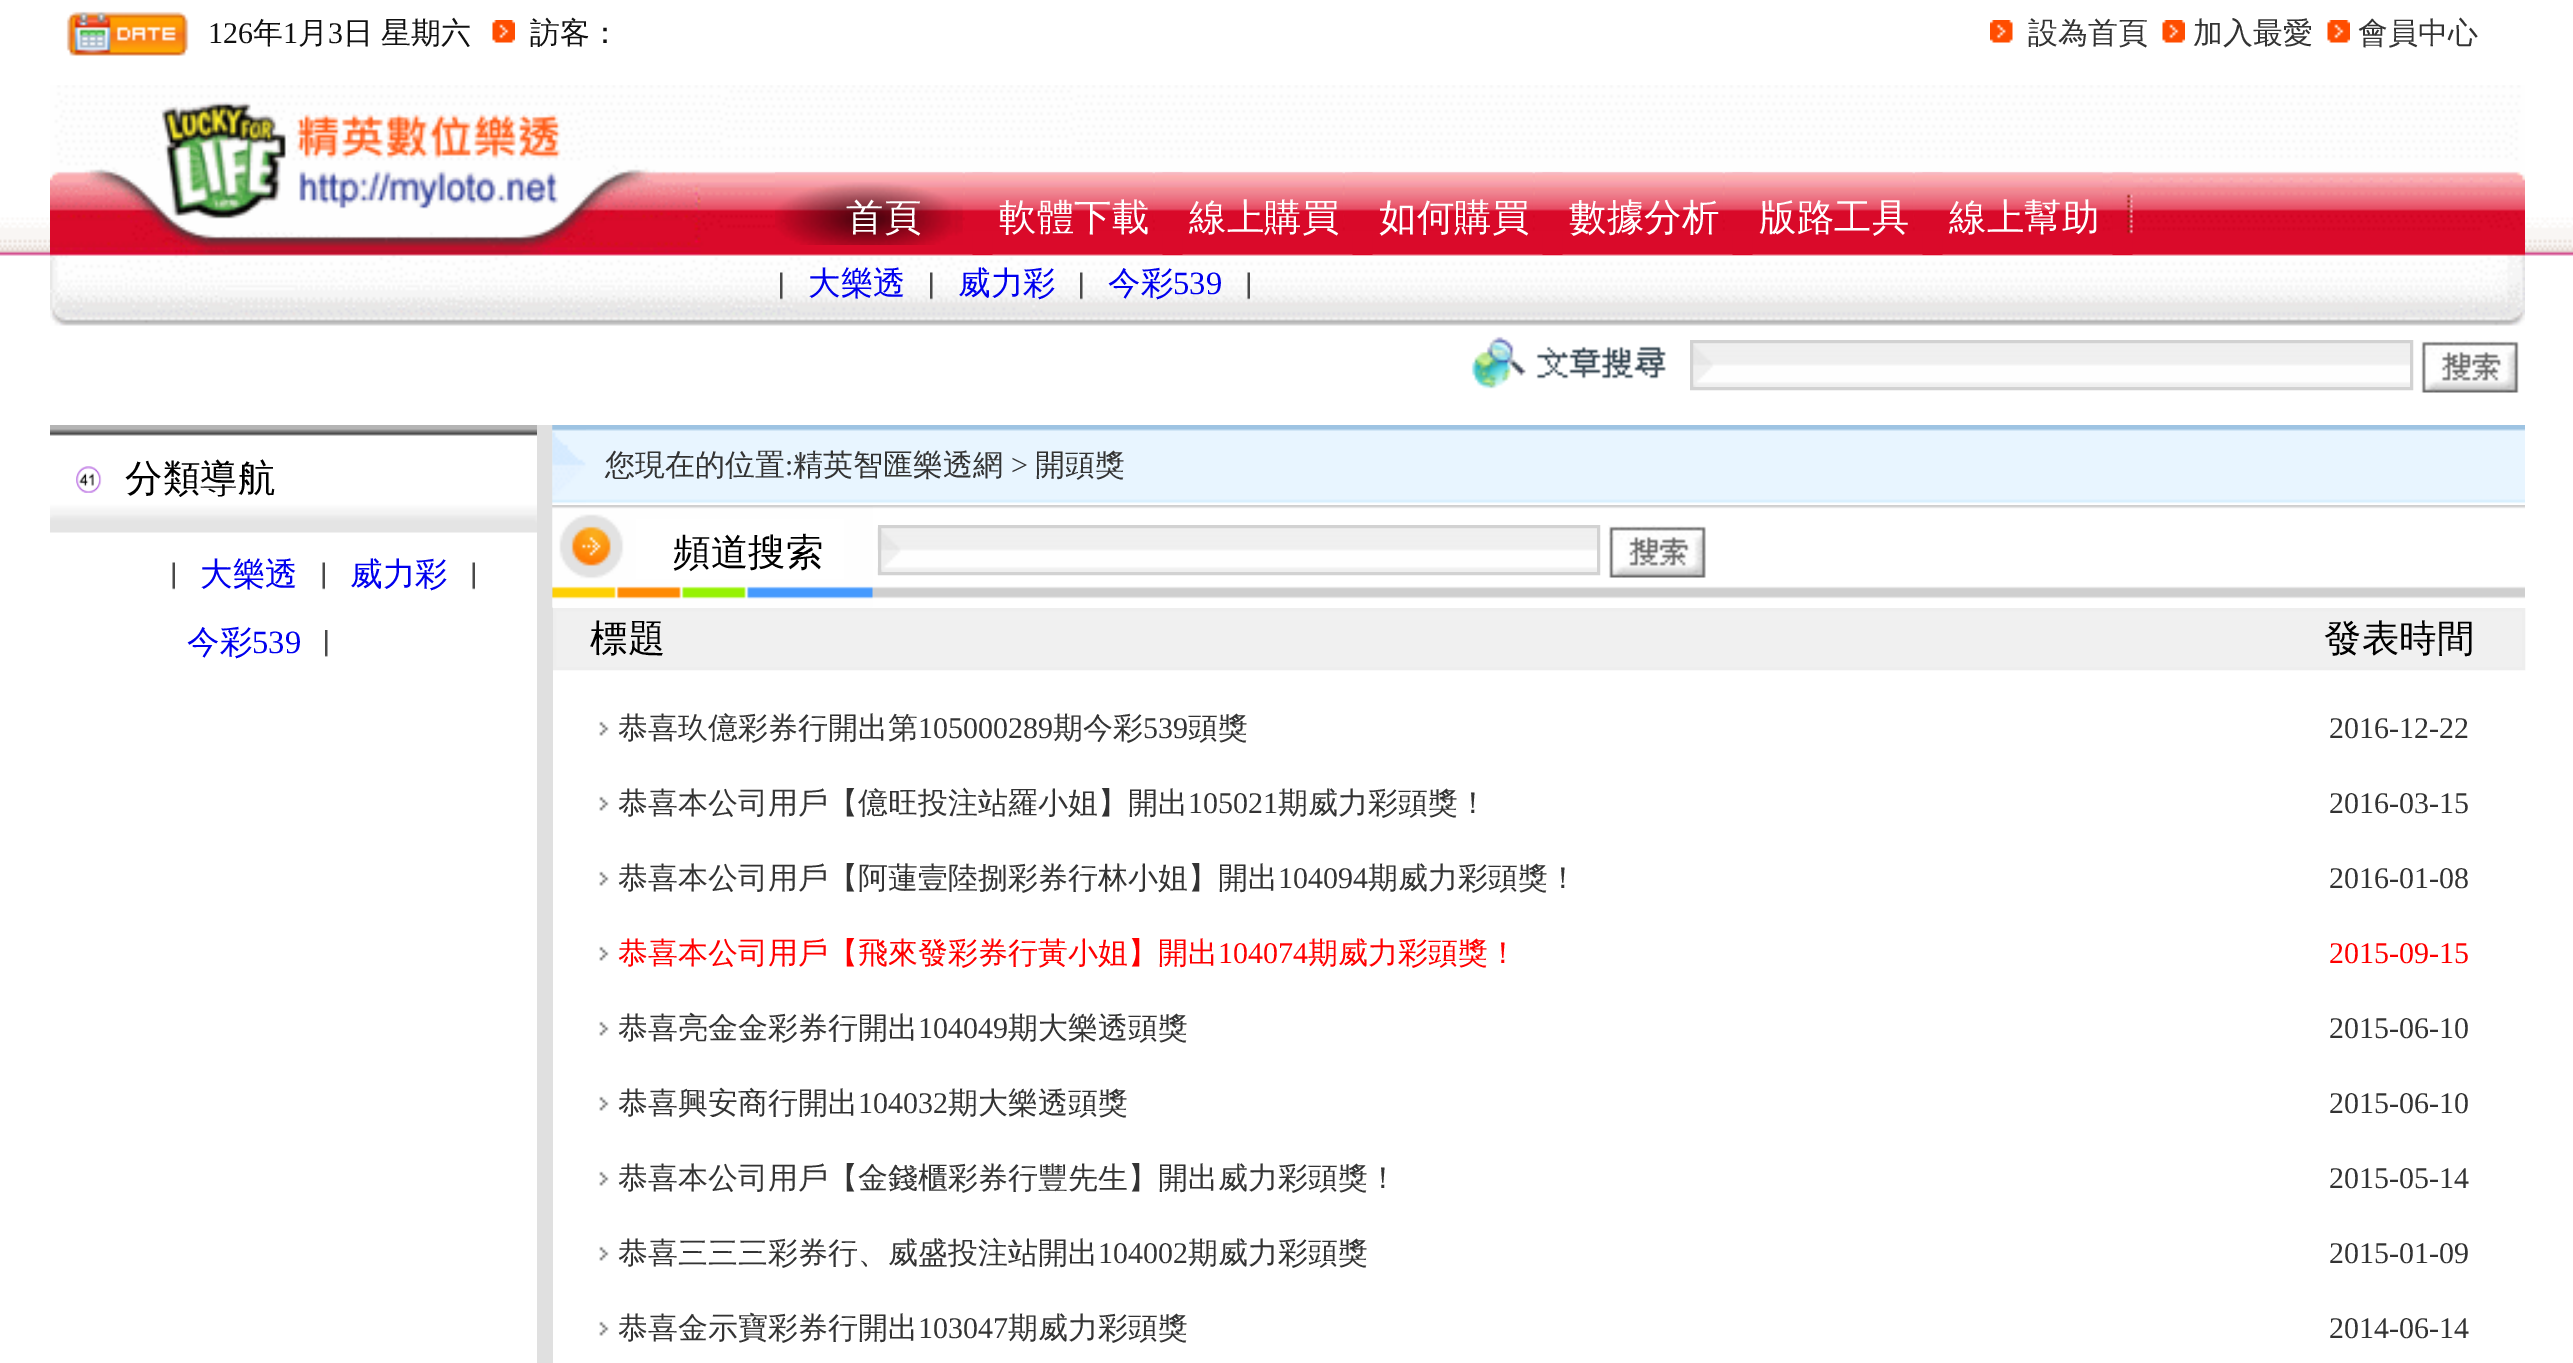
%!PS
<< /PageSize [2573 1363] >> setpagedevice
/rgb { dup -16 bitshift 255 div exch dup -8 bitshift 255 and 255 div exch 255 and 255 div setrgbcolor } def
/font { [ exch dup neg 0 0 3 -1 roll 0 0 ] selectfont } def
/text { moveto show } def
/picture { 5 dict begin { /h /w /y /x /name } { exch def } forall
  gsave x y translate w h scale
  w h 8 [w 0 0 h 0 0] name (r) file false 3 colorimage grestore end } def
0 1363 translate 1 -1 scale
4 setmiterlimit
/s1 { /LiberationSerif-Regular 30 font 16#111111 rgb } def
/s2 { /WenQuanYiZenHei-Medium 30 font 16#111111 rgb } def
/s3 { /WenQuanYiZenHei-Medium 30 font 16#333333 rgb } def
/s4 { /WenQuanYiZenHei-Medium 37.5 font 16#FFFFFF rgb } def
/s5 { /WenQuanYiZenHei-Medium 32.5 font 16#0000EE rgb } def
/s6 { /LiberationSerif-Regular 32.5 font 16#0000EE rgb } def
/s7 { /WenQuanYiZenHei-Medium 37.5 font 16#000000 rgb } def
/s8 { /LiberationSerif-Regular 30 font 16#333333 rgb } def
/s9 { /WenQuanYiZenHei-Medium 30 font 16#FF0000 rgb } def
/s10 { /LiberationSerif-Regular 30 font 16#FF0000 rgb } def
16#FFFFFF rgb
0 0 2573 1363 rectfill
(pic1.raw) 0 217 2573 39 picture
(pic2.raw) 66 11 123 45 picture
s1
(126) 208 43 text
s2
(年) 253 43 text
s1
(1) 283 43 text
s2
(月) 298 43 text
s1
(3) 328 43 text
/WenQuanYiZenHei-Medium 30 font
343 43 moveto -1 0 32 (日 星期六) widthshow
(pic3.raw) 492 20 23 23 picture
(訪客：) 530 43 text
(pic4.raw) 1990 20 23 23 picture
s3
(設為首頁) 2028 43 text
(pic3.raw) 2162 20 23 23 picture
(加入最愛) 2193 43 text
(pic5.raw) 2327 20 23 23 picture
(會員中心) 2358 43 text
(pic6.raw) 50 85 2475 241 picture
(pic7.raw) 775 172 188 73 picture
(pic8.raw) 972 172 21 83 picture
s4
(首頁) 846 230 text
(pic9.raw) 965 172 188 62 picture
(pic10.raw) 1162 172 21 83 picture
(軟體下載) 999 230 text
(pic11.raw) 1155 172 188 62 picture
(pic12.raw) 1352 172 21 83 picture
(線上購買) 1189 230 text
(pic13.raw) 1345 172 188 62 picture
(pic14.raw) 1542 172 21 83 picture
(如何購買) 1379 230 text
(pic15.raw) 1535 172 188 62 picture
(pic16.raw) 1732 172 21 83 picture
(數據分析) 1569 230 text
(pic17.raw) 1725 172 188 62 picture
(pic18.raw) 1922 172 21 83 picture
(版路工具) 1759 230 text
(pic19.raw) 1915 172 188 62 picture
(pic20.raw) 2112 172 21 83 picture
(線上幫助) 1949 230 text
(pic21.raw) 780 272 3 28 picture
s5
(大樂透) 808 294 text
(pic22.raw) 930 272 3 28 picture
(威力彩) 958 294 text
(pic23.raw) 1080 272 3 28 picture
(今彩) 1108 294 text
s6
(539) 1173 294 text
(pic24.raw) 1247 272 3 28 picture
(pic25.raw) 1471 336 195 53 picture
(pic26.raw) 1693 343 717 44 picture
16#D2D2D2 rgb
3 setlinewidth
1691.5 341.5 720 47 rectstroke
(pic27.raw) 2420 340 99 53 picture
(pic28.raw) 50 425 487 108 picture
(pic29.raw) 76 466 26 27 picture
s7
(分類導航) 125 491 text
(pic30.raw) 172 562 3 28 picture
s5
(大樂透) 200 585 text
(pic30.raw) 322 562 3 28 picture
(威力彩) 350 585 text
(pic30.raw) 472 562 3 28 picture
(今彩) 187 653 text
s6
(539) 252 653 text
(pic31.raw) 325 630 3 27 picture
16#E0E0E0 rgb
537 425 16 938 rectfill
(pic32.raw) 552 425 1973 80 picture
(pic33.raw) 552 425 34 80 picture
s3
(您現在的位置) 605 475 text
s8
(:) 785 475 text
s3
(精英智匯樂透網) 793 475 text
s8
(>) 1011 475 text
s3
(開頭獎) 1035 475 text
(pic34.raw) 552 505 1973 103 picture
(pic35.raw) 552 505 321 103 picture
s7
(頻道搜索) 673 565 text
(pic36.raw) 877 525 720 50 picture
16#D2D2D2 rgb
879.5 526.5 719 47 rectstroke
(pic37.raw) 1608 525 98 53 picture
16#F0F0F0 rgb
554.5 609.5 moveto 2523.5 609.5 lineto 2523.5 668.5 lineto 554.5 668.5 lineto closepath gsave fill grestore
16#EEEEEE rgb
stroke
s7
(標題) 590 651 text
(發表時間) 2324 651 text
(pic38.raw) 599 721 10 15 picture
s3
(恭喜玖億彩券行開出第) 618 738 text
s8
(105000289) 918 738 text
s3
(期今彩) 1053 738 text
s8
(539) 1143 738 text
s3
(頭獎) 1188 738 text
s8
(2016-12-22) 2329 738 text
(pic38.raw) 599 796 10 15 picture
s3
(恭喜本公司用戶【億旺投注站羅小姐】開出) 618 813 text
s8
(105021) 1188 813 text
s3
(期威力彩頭獎！) 1278 813 text
s8
(2016-03-15) 2329 813 text
(pic38.raw) 599 871 10 15 picture
s3
(恭喜本公司用戶【阿蓮壹陸捌彩券行林小姐】開出) 618 888 text
s8
(104094) 1278 888 text
s3
(期威力彩頭獎！) 1368 888 text
s8
(2016-01-08) 2329 888 text
(pic38.raw) 599 946 10 15 picture
s9
(恭喜本公司用戶【飛來發彩券行黃小姐】開出) 618 963 text
s10
(104074) 1218 963 text
s9
(期威力彩頭獎！) 1308 963 text
s10
(2015-09-15) 2329 963 text
(pic38.raw) 599 1021 10 15 picture
s3
(恭喜亮金金彩券行開出) 618 1038 text
s8
(104049) 918 1038 text
s3
(期大樂透頭獎) 1008 1038 text
s8
(2015-06-10) 2329 1038 text
(pic38.raw) 599 1096 10 15 picture
s3
(恭喜興安商行開出) 618 1113 text
s8
(104032) 858 1113 text
s3
(期大樂透頭獎) 948 1113 text
s8
(2015-06-10) 2329 1113 text
(pic39.raw) 599 1171 10 15 picture
s3
(恭喜本公司用戶【金錢櫃彩券行豐先生】開出威力彩頭獎！) 618 1188 text
s8
(2015-05-14) 2329 1188 text
(pic38.raw) 599 1246 10 15 picture
s3
(恭喜三三三彩券行、威盛投注站開出) 618 1263 text
s8
(104002) 1098 1263 text
s3
(期威力彩頭獎) 1188 1263 text
s8
(2015-01-09) 2329 1263 text
(pic38.raw) 599 1321 10 15 picture
s3
(恭喜金示寶彩券行開出) 618 1338 text
s8
(103047) 918 1338 text
s3
(期威力彩頭獎) 1008 1338 text
s8
(2014-06-14) 2329 1338 text
showpage
